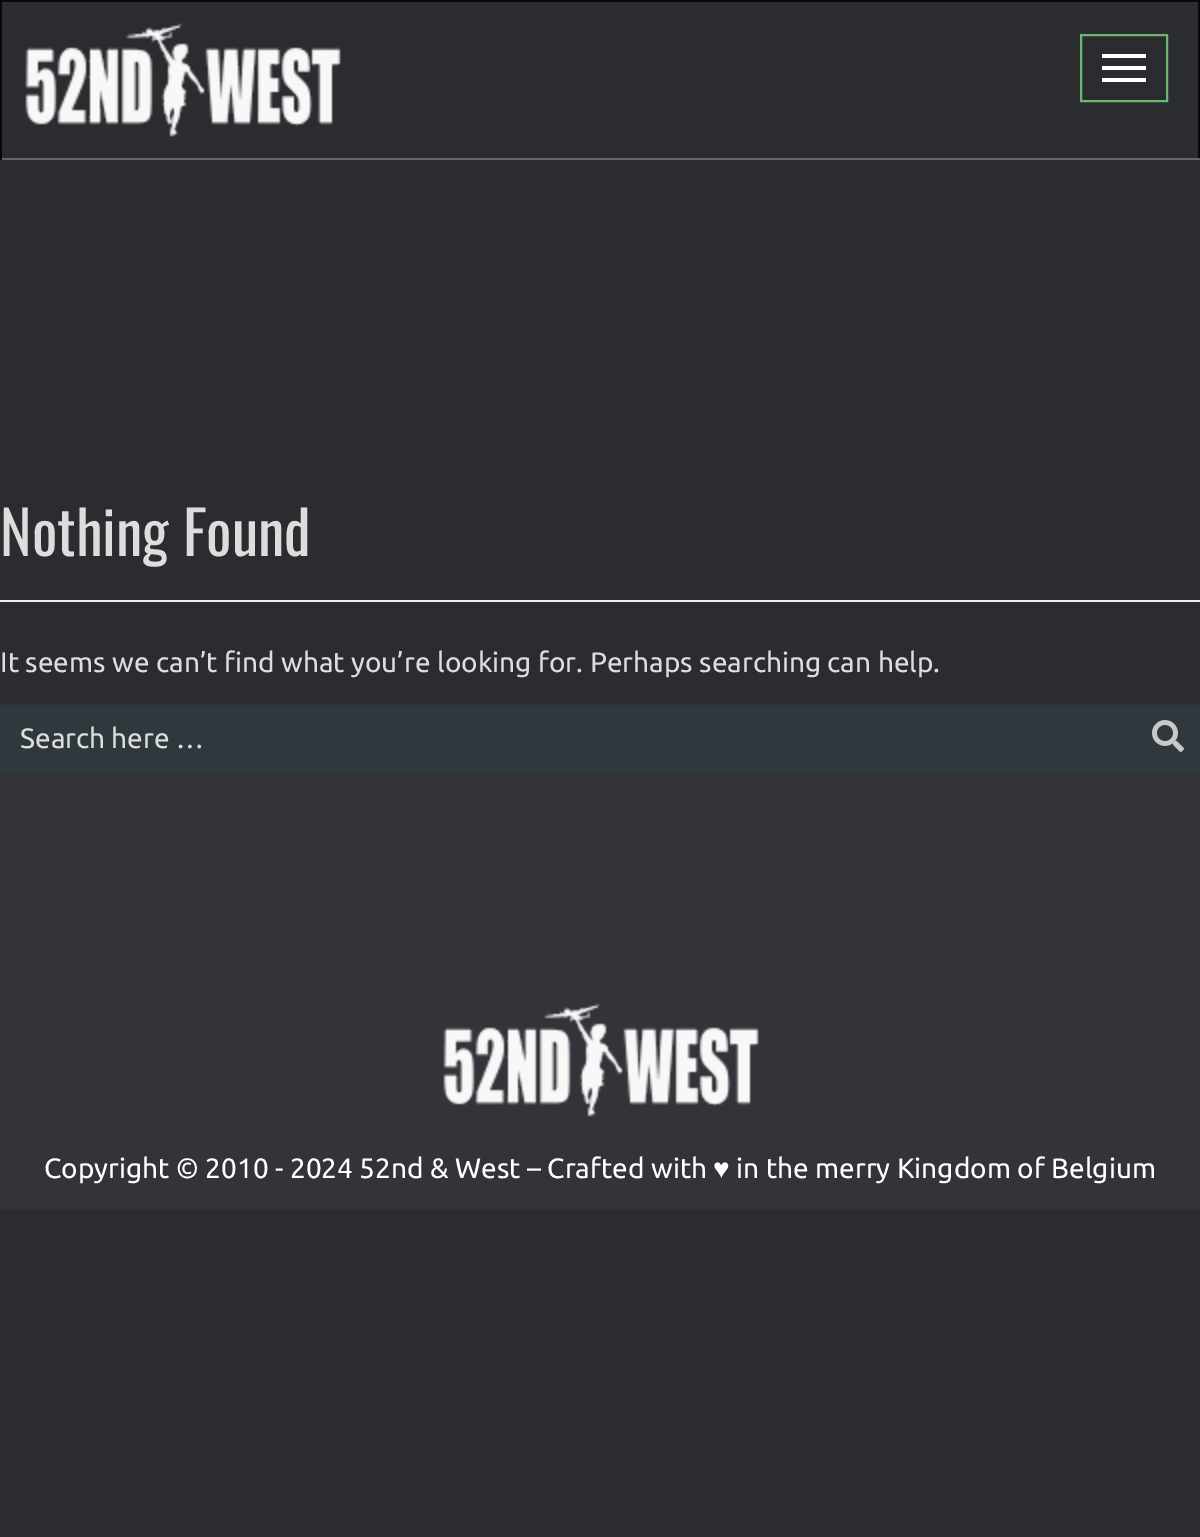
%!PS
<< /PageSize [1200 1537] >> setpagedevice
/rgb { dup -16 bitshift 255 div exch dup -8 bitshift 255 and 255 div exch 255 and 255 div setrgbcolor } def
/font { [ exch dup neg 0 0 3 -1 roll 0 0 ] selectfont } def
/text { moveto show } def
/picture { 5 dict begin { /h /w /y /x /name } { exch def } forall
  gsave x y translate w h scale
  w h 8 [w 0 0 h 0 0] name (r) file false 3 colorimage grestore end } def
0 1537 translate 1 -1 scale
4 setmiterlimit
/s1 { /Oswald-Regular 60 font 16#DDDDDD rgb } def
/s2 { /Ubuntu-Regular 28 font 16#DDDDDD rgb } def
/s3 { /Ubuntu-Regular 28 font 16#FFFFFF rgb } def
/s4 { /LiberationSans-Regular 28 font 16#FFFFFF rgb } def
16#2B2C30 rgb
0 0 1200 1537 rectfill
16#080808 rgb
0 0 1200 2 rectfill
1198 0 2 160 rectfill
16#666666 rgb
0 158 1200 2 rectfill
16#080808 rgb
0 0 2 160 rectfill
(pic1.raw) 25 23 316 114 picture
16#6CB670 rgb
2 setlinewidth
1081 35 86 66 rectstroke
16#FFFFFF rgb
1102 54 44 4 rectfill
1102 66 44 4 rectfill
1102 78 44 4 rectfill
16#EEEEEE rgb
0 600 1200 2 rectfill
s1
(Nothing Found) 0 556 text
s2
(It seems we can’t find what you’re looking for. Perhaps searching can help.) 0 672 text
16#2F383D rgb
0 706 1200 66 rectfill
16#2B3438 rgb
0 704 1200 2 rectfill
s2
(Search here …) 20 748 text
(pic2.raw) 1152 720 32 32 picture
16#333439 rgb
0 772 1200 438 rectfill
(pic3.raw) 443 1003 316 114 picture
s3
(Copyright © 2010 - 2024 52nd & West – Crafted with) 44 1178 text
s4
(♥) 713 1178 text
s3
(in the merry Kingdom of Belgium) 736 1178 text
showpage
